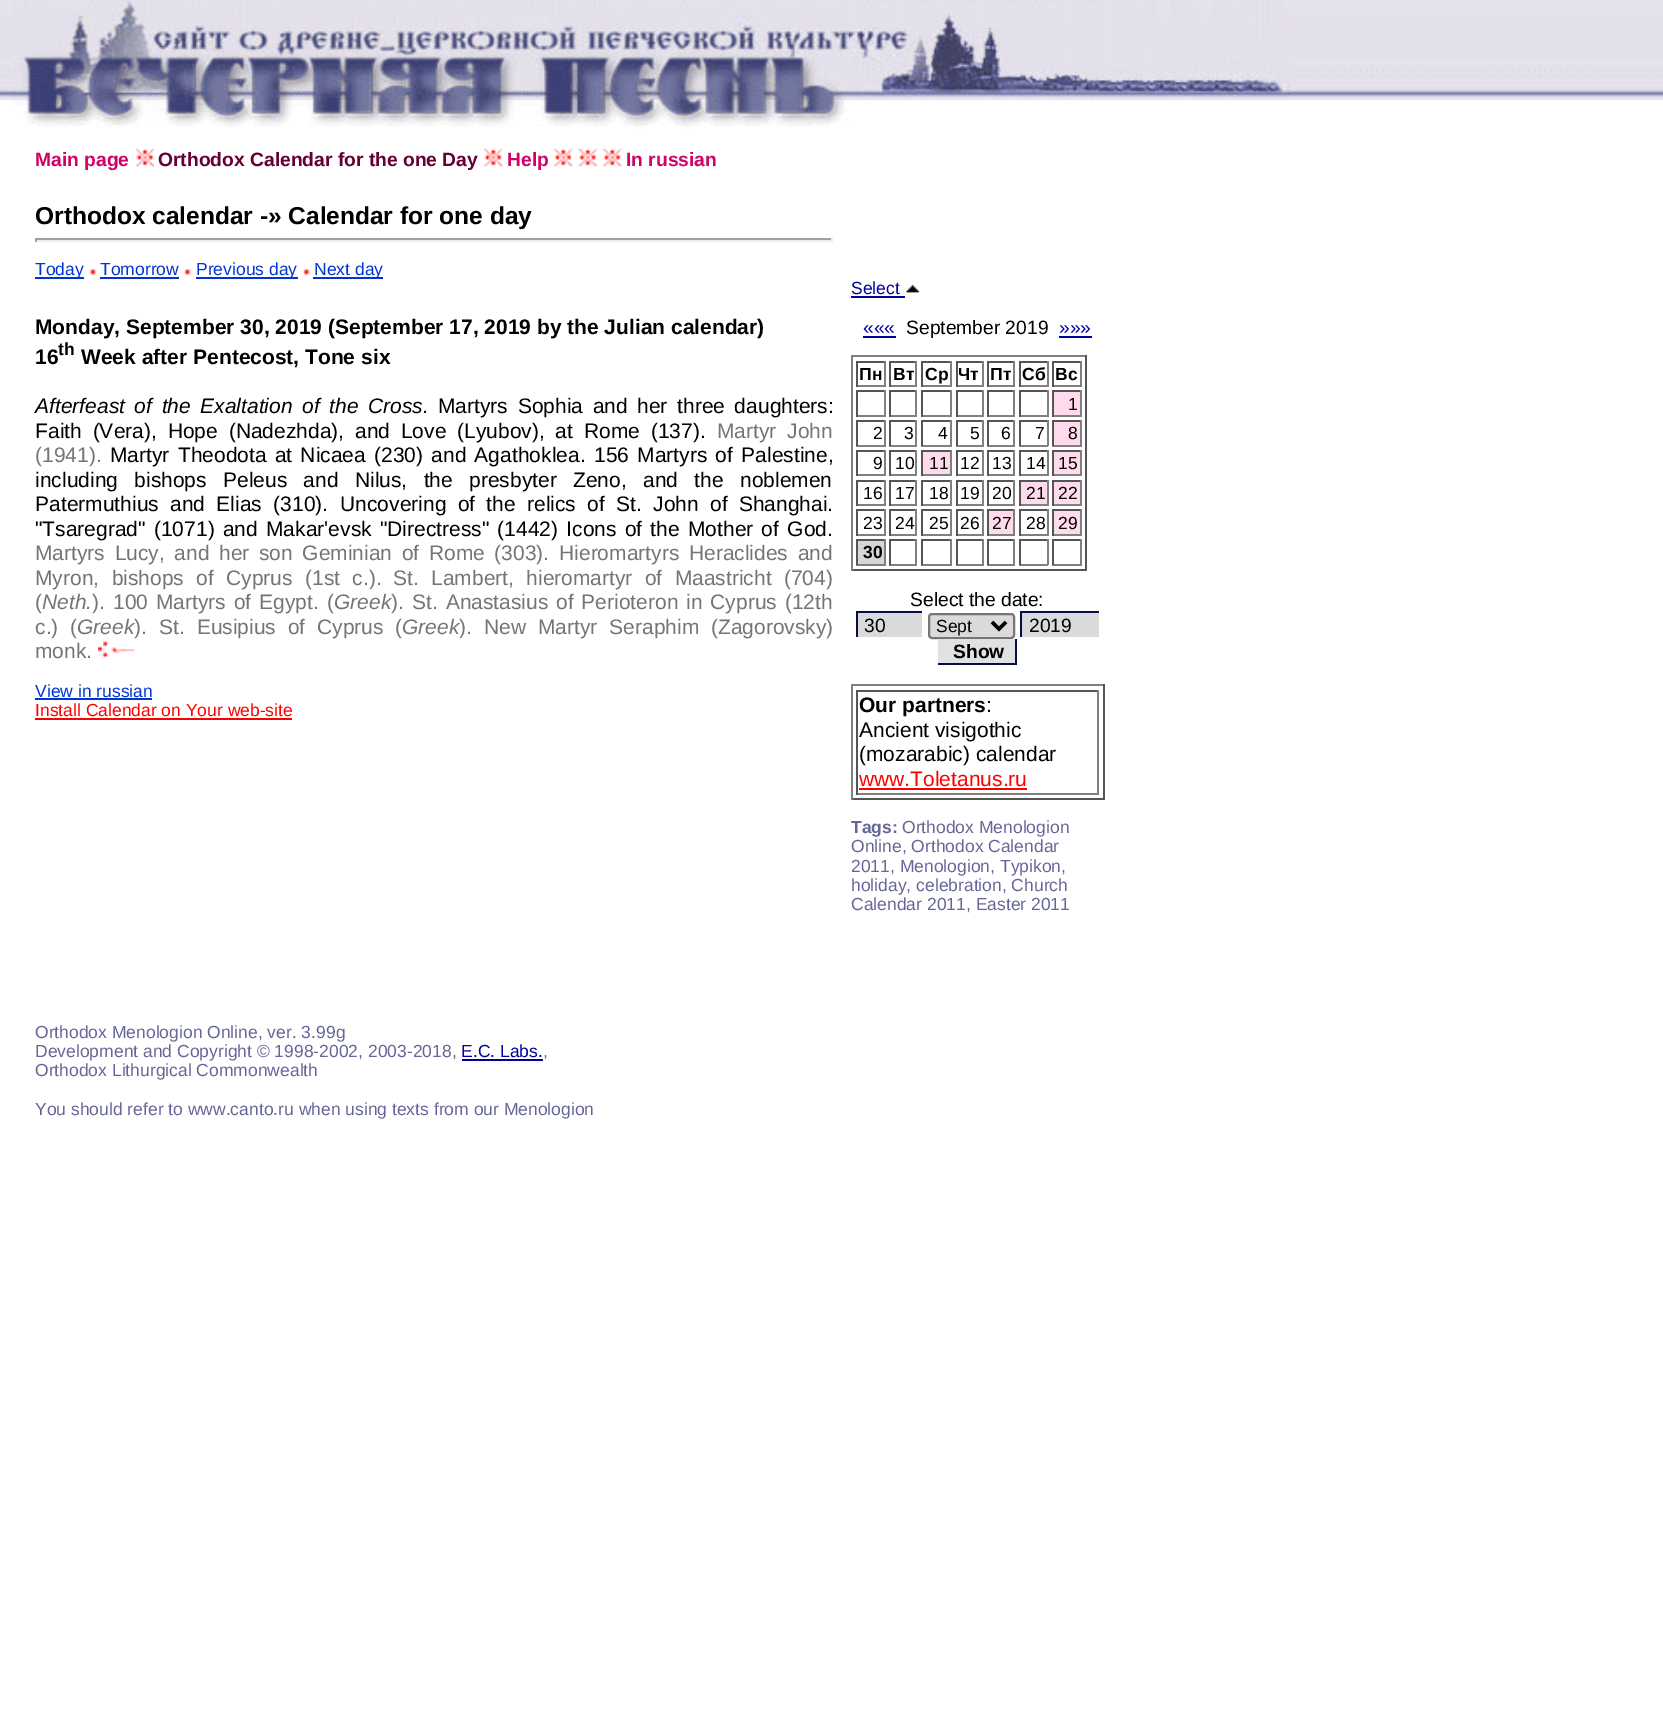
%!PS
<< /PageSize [1663 1715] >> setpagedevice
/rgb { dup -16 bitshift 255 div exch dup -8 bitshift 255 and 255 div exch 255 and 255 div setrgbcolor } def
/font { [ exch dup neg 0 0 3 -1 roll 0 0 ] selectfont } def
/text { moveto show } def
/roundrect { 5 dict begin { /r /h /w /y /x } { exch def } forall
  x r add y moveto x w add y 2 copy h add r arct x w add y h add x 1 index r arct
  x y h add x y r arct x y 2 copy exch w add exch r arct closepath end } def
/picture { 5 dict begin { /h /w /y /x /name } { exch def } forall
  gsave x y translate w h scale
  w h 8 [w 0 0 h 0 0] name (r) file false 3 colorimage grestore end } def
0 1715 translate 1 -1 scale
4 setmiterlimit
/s1 { /LiberationSans-Bold 19.25 font 16#D20069 rgb } def
/s2 { /LiberationSans-Bold 19.25 font 16#660033 rgb } def
/s3 { /LiberationSans-Bold 24.5 font 16#000000 rgb } def
/s4 { /LiberationSans-Regular 17.5 font 16#0035D5 rgb } def
/s5 { /LiberationSans-Bold 21 font 16#000000 rgb } def
/s6 { /LiberationSans-Bold 17.5 font 16#000000 rgb } def
/s7 { /LiberationSans-Regular 21 font 16#757575 rgb } def
/s8 { /LiberationSans-Italic 21 font 16#757575 rgb } def
/s9 { /LiberationSans-Regular 17.5 font 16#FF0000 rgb } def
/s10 { /LiberationSans-Regular 17.5 font 16#0000A0 rgb } def
/s11 { /LiberationSans-Regular 19.25 font 16#0000A0 rgb } def
/s12 { /LiberationSans-Regular 19.25 font 16#000000 rgb } def
/s13 { /LiberationSans-Regular 17.5 font 16#000000 rgb } def
/s14 { /LiberationSans-Bold 19.25 font 16#000000 rgb } def
/s15 { /LiberationSans-Regular 21 font 16#000000 rgb } def
/s16 { /LiberationSans-Regular 21 font 16#FF0000 rgb } def
/s17 { /LiberationSans-Bold 17.5 font 16#666699 rgb } def
/s18 { /LiberationSans-Regular 17.5 font 16#666699 rgb } def
16#FFFFFF rgb
0 0 1663 1715 rectfill
(pic1.raw) 0 0 14 101 picture
(pic2.raw) 521 0 1 101 picture
(pic4.raw) 521 0 328 101 picture
(pic3.raw) 14 0 508 128 picture
(pic6.raw) 848 0 442 101 picture
(pic5.raw) 521 0 328 129 picture
(pic8.raw) 1289 0 374 101 picture
(pic7.raw) 848 0 442 100 picture
s1
(Main page) 35 166 text
(pic9.raw) 135 148 19 19 picture
s2
(Orthodox Calendar for the one Day) 158 166 text
(pic10.raw) 483 148 20 19 picture
s1
(Help) 507 166 text
(pic10.raw) 553 148 20 19 picture
(pic11.raw) 577 148 20 19 picture
(pic10.raw) 602 148 20 19 picture
(In russian) 626 166 text
s3
(Orthodox calendar -» Calendar for one day) 35 224 text
16#9F9F9F rgb
35 238 798 2 rectfill
16#EEEEEE rgb
831 238 2 4 rectfill
35 240 798 2 rectfill
16#9F9F9F rgb
35 238 2 4 rectfill
16#0035D5 rgb
35 277 49 2 rectfill
s4
(Today) 35 275 text
(pic12.raw) 89 269 8 6 picture
(Tomorrow) 100 275 text
100 277 79 2 rectfill
(pic13.raw) 183 269 8 6 picture
196 277 102 2 rectfill
(Previous day) 196 275 text
(pic14.raw) 302 269 8 6 picture
313 277 70 2 rectfill
(Next day) 314 275 text
s5
(Monday, September 30, 2019 \(September 17, 2019 by the Julian calendar\)) 35 334 text
(16) 35 364 text
s6
(th) 58 355 text
s5
(Week after Pentecost, Tone six) 81 364 text
/LiberationSans-Italic 21 font
35 413 moveto 3.75 0 32 (Afterfeast of the Exaltation of the Cross.) widthshow
/LiberationSans-Regular 21 font
438 413 moveto 3.75 0 32 (Martyrs Sophia and her three daughters:) widthshow
35 438 moveto 5 0 32 (Faith \(Vera\), Hope \(Nadezhda\), and Love \(Lyubov\), at Rome \(137\).) widthshow
16#757575 rgb
717 438 moveto 5 0 32 (Martyr John) widthshow
(\(1941\).) 35 462 text
16#000000 rgb
110 462 moveto 2.4 0 32 (Martyr Theodota at Nicaea \(230\) and Agathoklea.) widthshow
594 462 moveto 2.4 0 32 (156 Martyrs of Palestine,) widthshow
35 487 moveto 10.5 0 32 (including bishops Peleus and Nilus, the presbyter Zeno, and the noblemen) widthshow
35 511 moveto 5.5 0 32 (Patermuthius and Elias \(310\).) widthshow
340 511 moveto 5.5 0 32 (Uncovering of the relics of St. John of Shanghai.) widthshow
35 536 moveto 2.4 0 32 ("Tsaregrad" \(1071\) and Makar'evsk "Directress" \(1442\) Icons of the Mother of God.) widthshow
16#757575 rgb
35 560 moveto 3.75 0 32 (Martyrs Lucy, and her son Geminian of Rome \(303\).) widthshow
559 560 moveto 3.75 0 32 (Hieromartyrs Heraclides and) widthshow
35 585 moveto 6.5 0 32 (Myron, bishops of Cyprus \(1st c.\).) widthshow
393 585 moveto 6.5 0 32 (St. Lambert, hieromartyr of Maastricht \(704\)) widthshow
(\() 35 609 text
s8
(Neth.) 42 609 text
s7
(\).) 92 609 text
113 609 moveto 2 0 32 (100 Martyrs of Egypt.) widthshow
(\() 327 609 text
s8
(Greek) 334 609 text
s7
(\).) 391 609 text
412 609 moveto 2 0 32 (St. Anastasius of Perioteron in Cyprus \(12th) widthshow
35 634 moveto 6 0 32 (c.\) \() widthshow
s8
(Greek) 77 634 text
s7
(\).) 134 634 text
159 634 moveto 6 0 32 (St. Eusipius of Cyprus \() widthshow
s8
(Greek) 402 634 text
s7
(\).) 459 634 text
484 634 moveto 6 0 32 (New Martyr Seraphim \(Zagorovsky\)) widthshow
(monk.) 35 658 text
(pic15.raw) 98 640 37 18 picture
s4
(View in russian) 35 697 text
35 698 117 2 rectfill
s9
(Install Calendar on Your web-site) 35 716 text
35 718 257 2 rectfill
s10
(Select) 851 294 text
851 296 54 2 rectfill
(pic16.raw) 906 284 14 9 picture
s11
(«««) 863 334 text
863 336 33 2 rectfill
s12
(September 2019) 906 334 text
s11
(»»») 1059 334 text
1059 336 33 2 rectfill
16#808080 rgb
851 355 236 2 rectfill
16#555555 rgb
1085 355 2 216 rectfill
851 569 236 2 rectfill
16#808080 rgb
851 355 2 216 rectfill
16#555555 rgb
856 361 30 2 rectfill
16#808080 rgb
884 361 2 26 rectfill
856 385 30 2 rectfill
16#555555 rgb
856 361 2 26 rectfill
s6
(Пн) 859 380 text
16#555555 rgb
889 361 28 2 rectfill
16#808080 rgb
915 361 2 26 rectfill
889 385 28 2 rectfill
16#555555 rgb
889 361 2 26 rectfill
s6
(Вт) 893 380 text
16#555555 rgb
921 361 31 2 rectfill
16#808080 rgb
950 361 2 26 rectfill
921 385 31 2 rectfill
16#555555 rgb
921 361 2 26 rectfill
s6
(Ср) 925 380 text
16#555555 rgb
956 361 28 2 rectfill
16#808080 rgb
982 361 2 26 rectfill
956 385 28 2 rectfill
16#555555 rgb
956 361 2 26 rectfill
s6
(Чт) 958 380 text
16#555555 rgb
987 361 28 2 rectfill
16#808080 rgb
1013 361 2 26 rectfill
987 385 28 2 rectfill
16#555555 rgb
987 361 2 26 rectfill
s6
(Пт) 990 380 text
16#555555 rgb
1019 361 29 2 rectfill
16#808080 rgb
1047 361 2 26 rectfill
1019 385 29 2 rectfill
16#555555 rgb
1019 361 2 26 rectfill
s6
(Сб) 1022 380 text
16#555555 rgb
1052 361 30 2 rectfill
16#808080 rgb
1080 361 2 26 rectfill
1052 385 30 2 rectfill
16#555555 rgb
1052 361 2 26 rectfill
s6
(Вс) 1055 380 text
16#555555 rgb
856 390 30 2 rectfill
16#808080 rgb
884 390 2 27 rectfill
856 415 30 2 rectfill
16#555555 rgb
856 390 2 27 rectfill
889 390 28 2 rectfill
16#808080 rgb
915 390 2 27 rectfill
889 415 28 2 rectfill
16#555555 rgb
889 390 2 27 rectfill
921 390 31 2 rectfill
16#808080 rgb
950 390 2 27 rectfill
921 415 31 2 rectfill
16#555555 rgb
921 390 2 27 rectfill
956 390 28 2 rectfill
16#808080 rgb
982 390 2 27 rectfill
956 415 28 2 rectfill
16#555555 rgb
956 390 2 27 rectfill
987 390 28 2 rectfill
16#808080 rgb
1013 390 2 27 rectfill
987 415 28 2 rectfill
16#555555 rgb
987 390 2 27 rectfill
1019 390 29 2 rectfill
16#808080 rgb
1047 390 2 27 rectfill
1019 415 29 2 rectfill
16#555555 rgb
1019 390 2 27 rectfill
16#FFD9EC rgb
1054 392 26 23 rectfill
16#555555 rgb
1052 390 30 2 rectfill
16#808080 rgb
1080 390 2 27 rectfill
1052 415 30 2 rectfill
16#555555 rgb
1052 390 2 27 rectfill
s13
(1) 1068 410 text
16#555555 rgb
856 420 30 2 rectfill
16#808080 rgb
884 420 2 26 rectfill
856 445 30 2 rectfill
16#555555 rgb
856 420 2 26 rectfill
s13
(2) 873 439 text
16#555555 rgb
889 420 28 2 rectfill
16#808080 rgb
915 420 2 26 rectfill
889 445 28 2 rectfill
16#555555 rgb
889 420 2 26 rectfill
s13
(3) 904 439 text
16#555555 rgb
921 420 31 2 rectfill
16#808080 rgb
950 420 2 26 rectfill
921 445 31 2 rectfill
16#555555 rgb
921 420 2 26 rectfill
s13
(4) 938 439 text
16#555555 rgb
956 420 28 2 rectfill
16#808080 rgb
982 420 2 26 rectfill
956 445 28 2 rectfill
16#555555 rgb
956 420 2 26 rectfill
s13
(5) 970 439 text
16#555555 rgb
987 420 28 2 rectfill
16#808080 rgb
1013 420 2 26 rectfill
987 445 28 2 rectfill
16#555555 rgb
987 420 2 26 rectfill
s13
(6) 1001 439 text
16#555555 rgb
1019 420 29 2 rectfill
16#808080 rgb
1047 420 2 26 rectfill
1019 445 29 2 rectfill
16#555555 rgb
1019 420 2 26 rectfill
s13
(7) 1035 439 text
16#FFD9EC rgb
1054 422 26 23 rectfill
16#555555 rgb
1052 420 30 2 rectfill
16#808080 rgb
1080 420 2 26 rectfill
1052 445 30 2 rectfill
16#555555 rgb
1052 420 2 26 rectfill
s13
(8) 1068 439 text
16#555555 rgb
856 450 30 2 rectfill
16#808080 rgb
884 450 2 26 rectfill
856 474 30 2 rectfill
16#555555 rgb
856 450 2 26 rectfill
s13
(9) 873 469 text
16#555555 rgb
889 450 28 2 rectfill
16#808080 rgb
915 450 2 26 rectfill
889 474 28 2 rectfill
16#555555 rgb
889 450 2 26 rectfill
s13
(10) 895 469 text
16#FFD9EC rgb
923 452 27 22 rectfill
16#555555 rgb
921 450 31 2 rectfill
16#808080 rgb
950 450 2 26 rectfill
921 474 31 2 rectfill
16#555555 rgb
921 450 2 26 rectfill
s13
(11) 929 469 text
16#555555 rgb
956 450 28 2 rectfill
16#808080 rgb
982 450 2 26 rectfill
956 474 28 2 rectfill
16#555555 rgb
956 450 2 26 rectfill
s13
(12) 960 469 text
16#555555 rgb
987 450 28 2 rectfill
16#808080 rgb
1013 450 2 26 rectfill
987 474 28 2 rectfill
16#555555 rgb
987 450 2 26 rectfill
s13
(13) 992 469 text
16#555555 rgb
1019 450 29 2 rectfill
16#808080 rgb
1047 450 2 26 rectfill
1019 474 29 2 rectfill
16#555555 rgb
1019 450 2 26 rectfill
s13
(14) 1026 469 text
16#FFD9EC rgb
1054 452 26 22 rectfill
16#555555 rgb
1052 450 30 2 rectfill
16#808080 rgb
1080 450 2 26 rectfill
1052 474 30 2 rectfill
16#555555 rgb
1052 450 2 26 rectfill
s13
(15) 1058 469 text
16#555555 rgb
856 480 30 2 rectfill
16#808080 rgb
884 480 2 26 rectfill
856 504 30 2 rectfill
16#555555 rgb
856 480 2 26 rectfill
s13
(16) 863 499 text
16#555555 rgb
889 480 28 2 rectfill
16#808080 rgb
915 480 2 26 rectfill
889 504 28 2 rectfill
16#555555 rgb
889 480 2 26 rectfill
s13
(17) 895 499 text
16#555555 rgb
921 480 31 2 rectfill
16#808080 rgb
950 480 2 26 rectfill
921 504 31 2 rectfill
16#555555 rgb
921 480 2 26 rectfill
s13
(18) 929 499 text
16#555555 rgb
956 480 28 2 rectfill
16#808080 rgb
982 480 2 26 rectfill
956 504 28 2 rectfill
16#555555 rgb
956 480 2 26 rectfill
s13
(19) 960 499 text
16#555555 rgb
987 480 28 2 rectfill
16#808080 rgb
1013 480 2 26 rectfill
987 504 28 2 rectfill
16#555555 rgb
987 480 2 26 rectfill
s13
(20) 992 499 text
16#FFD9EC rgb
1021 482 26 22 rectfill
16#555555 rgb
1019 480 29 2 rectfill
16#808080 rgb
1047 480 2 26 rectfill
1019 504 29 2 rectfill
16#555555 rgb
1019 480 2 26 rectfill
s13
(21) 1026 499 text
16#FFD9EC rgb
1054 482 26 22 rectfill
16#555555 rgb
1052 480 30 2 rectfill
16#808080 rgb
1080 480 2 26 rectfill
1052 504 30 2 rectfill
16#555555 rgb
1052 480 2 26 rectfill
s13
(22) 1058 499 text
16#555555 rgb
856 509 30 2 rectfill
16#808080 rgb
884 509 2 27 rectfill
856 534 30 2 rectfill
16#555555 rgb
856 509 2 27 rectfill
s13
(23) 863 529 text
16#555555 rgb
889 509 28 2 rectfill
16#808080 rgb
915 509 2 27 rectfill
889 534 28 2 rectfill
16#555555 rgb
889 509 2 27 rectfill
s13
(24) 895 529 text
16#555555 rgb
921 509 31 2 rectfill
16#808080 rgb
950 509 2 27 rectfill
921 534 31 2 rectfill
16#555555 rgb
921 509 2 27 rectfill
s13
(25) 929 529 text
16#555555 rgb
956 509 28 2 rectfill
16#808080 rgb
982 509 2 27 rectfill
956 534 28 2 rectfill
16#555555 rgb
956 509 2 27 rectfill
s13
(26) 960 529 text
16#FFD9EC rgb
989 511 24 23 rectfill
16#555555 rgb
987 509 28 2 rectfill
16#808080 rgb
1013 509 2 27 rectfill
987 534 28 2 rectfill
16#555555 rgb
987 509 2 27 rectfill
s13
(27) 992 529 text
16#555555 rgb
1019 509 29 2 rectfill
16#808080 rgb
1047 509 2 27 rectfill
1019 534 29 2 rectfill
16#555555 rgb
1019 509 2 27 rectfill
s13
(28) 1026 529 text
16#FFD9EC rgb
1054 511 26 23 rectfill
16#555555 rgb
1052 509 30 2 rectfill
16#808080 rgb
1080 509 2 27 rectfill
1052 534 30 2 rectfill
16#555555 rgb
1052 509 2 27 rectfill
s13
(29) 1058 529 text
16#D6D6D6 rgb
858 541 26 23 rectfill
16#555555 rgb
856 539 30 2 rectfill
16#808080 rgb
884 539 2 26 rectfill
856 564 30 2 rectfill
16#555555 rgb
856 539 2 26 rectfill
s6
(30) 863 558 text
16#555555 rgb
889 539 28 2 rectfill
16#808080 rgb
915 539 2 26 rectfill
889 564 28 2 rectfill
16#555555 rgb
889 539 2 26 rectfill
921 539 31 2 rectfill
16#808080 rgb
950 539 2 26 rectfill
921 564 31 2 rectfill
16#555555 rgb
921 539 2 26 rectfill
956 539 28 2 rectfill
16#808080 rgb
982 539 2 26 rectfill
956 564 28 2 rectfill
16#555555 rgb
956 539 2 26 rectfill
987 539 28 2 rectfill
16#808080 rgb
1013 539 2 26 rectfill
987 564 28 2 rectfill
16#555555 rgb
987 539 2 26 rectfill
1019 539 29 2 rectfill
16#808080 rgb
1047 539 2 26 rectfill
1019 564 29 2 rectfill
16#555555 rgb
1019 539 2 26 rectfill
1052 539 30 2 rectfill
16#808080 rgb
1080 539 2 26 rectfill
1052 564 30 2 rectfill
16#555555 rgb
1052 539 2 26 rectfill
s12
(Select the date:) 910 606 text
16#DADADA rgb
858 613 64 24 rectfill
16#040D48 rgb
856 611 66 2 rectfill
856 611 2 26 rectfill
s12
(30) 864 632 text
16#DADADA rgb
929 614 85 24 3 roundrect gsave fill grestore
16#767676 rgb
2 setlinewidth
stroke
16#000000 rgb
3.5 setlinewidth
992 622 moveto 999 629 lineto 1006 622 lineto stroke
s13
(Sept) 936 632 text
16#DADADA rgb
1022 613 77 24 rectfill
16#040D48 rgb
1020 611 79 2 rectfill
1020 611 2 26 rectfill
s12
(2019) 1029 632 text
16#E1E1E1 rgb
938 639 77 24 rectfill
16#040D48 rgb
1015 639 2 26 rectfill
938 663 79 2 rectfill
s14
(Show) 953 658 text
16#808080 rgb
851 684 253 2 rectfill
16#555555 rgb
1103 684 2 116 rectfill
851 798 253 2 rectfill
16#808080 rgb
851 684 2 116 rectfill
16#555555 rgb
856 690 243 2 rectfill
16#808080 rgb
1097 690 2 105 rectfill
856 793 243 2 rectfill
16#555555 rgb
856 690 2 105 rectfill
s5
(Our partners) 859 712 text
s15
(:) 986 712 text
(Ancient visigothic) 859 737 text
(\(mozarabic\) calendar) 859 761 text
s16
(www.Toletanus.ru) 859 786 text
859 788 168 2 rectfill
s17
(Tags:) 851 833 text
s18
(Orthodox Menologion) 902 833 text
(Online, Orthodox Calendar) 851 852 text
(2011, Menologion, Typikon,) 851 872 text
(holiday, celebration, Church) 851 891 text
(Calendar 2011, Easter 2011) 851 910 text
(Orthodox Menologion Online, ver. 3.99g) 35 1038 text
(Development and Copyright © 1998-2002, 2003-2018,) 35 1057 text
s10
(E.C. Labs.) 461 1057 text
s18
(,) 543 1057 text
16#0000A0 rgb
462 1059 81 2 rectfill
s18
(Orthodox Lithurgical Commonwealth) 35 1076 text
(You should refer to www.canto.ru when using texts from our Menologion) 35 1115 text
showpage
